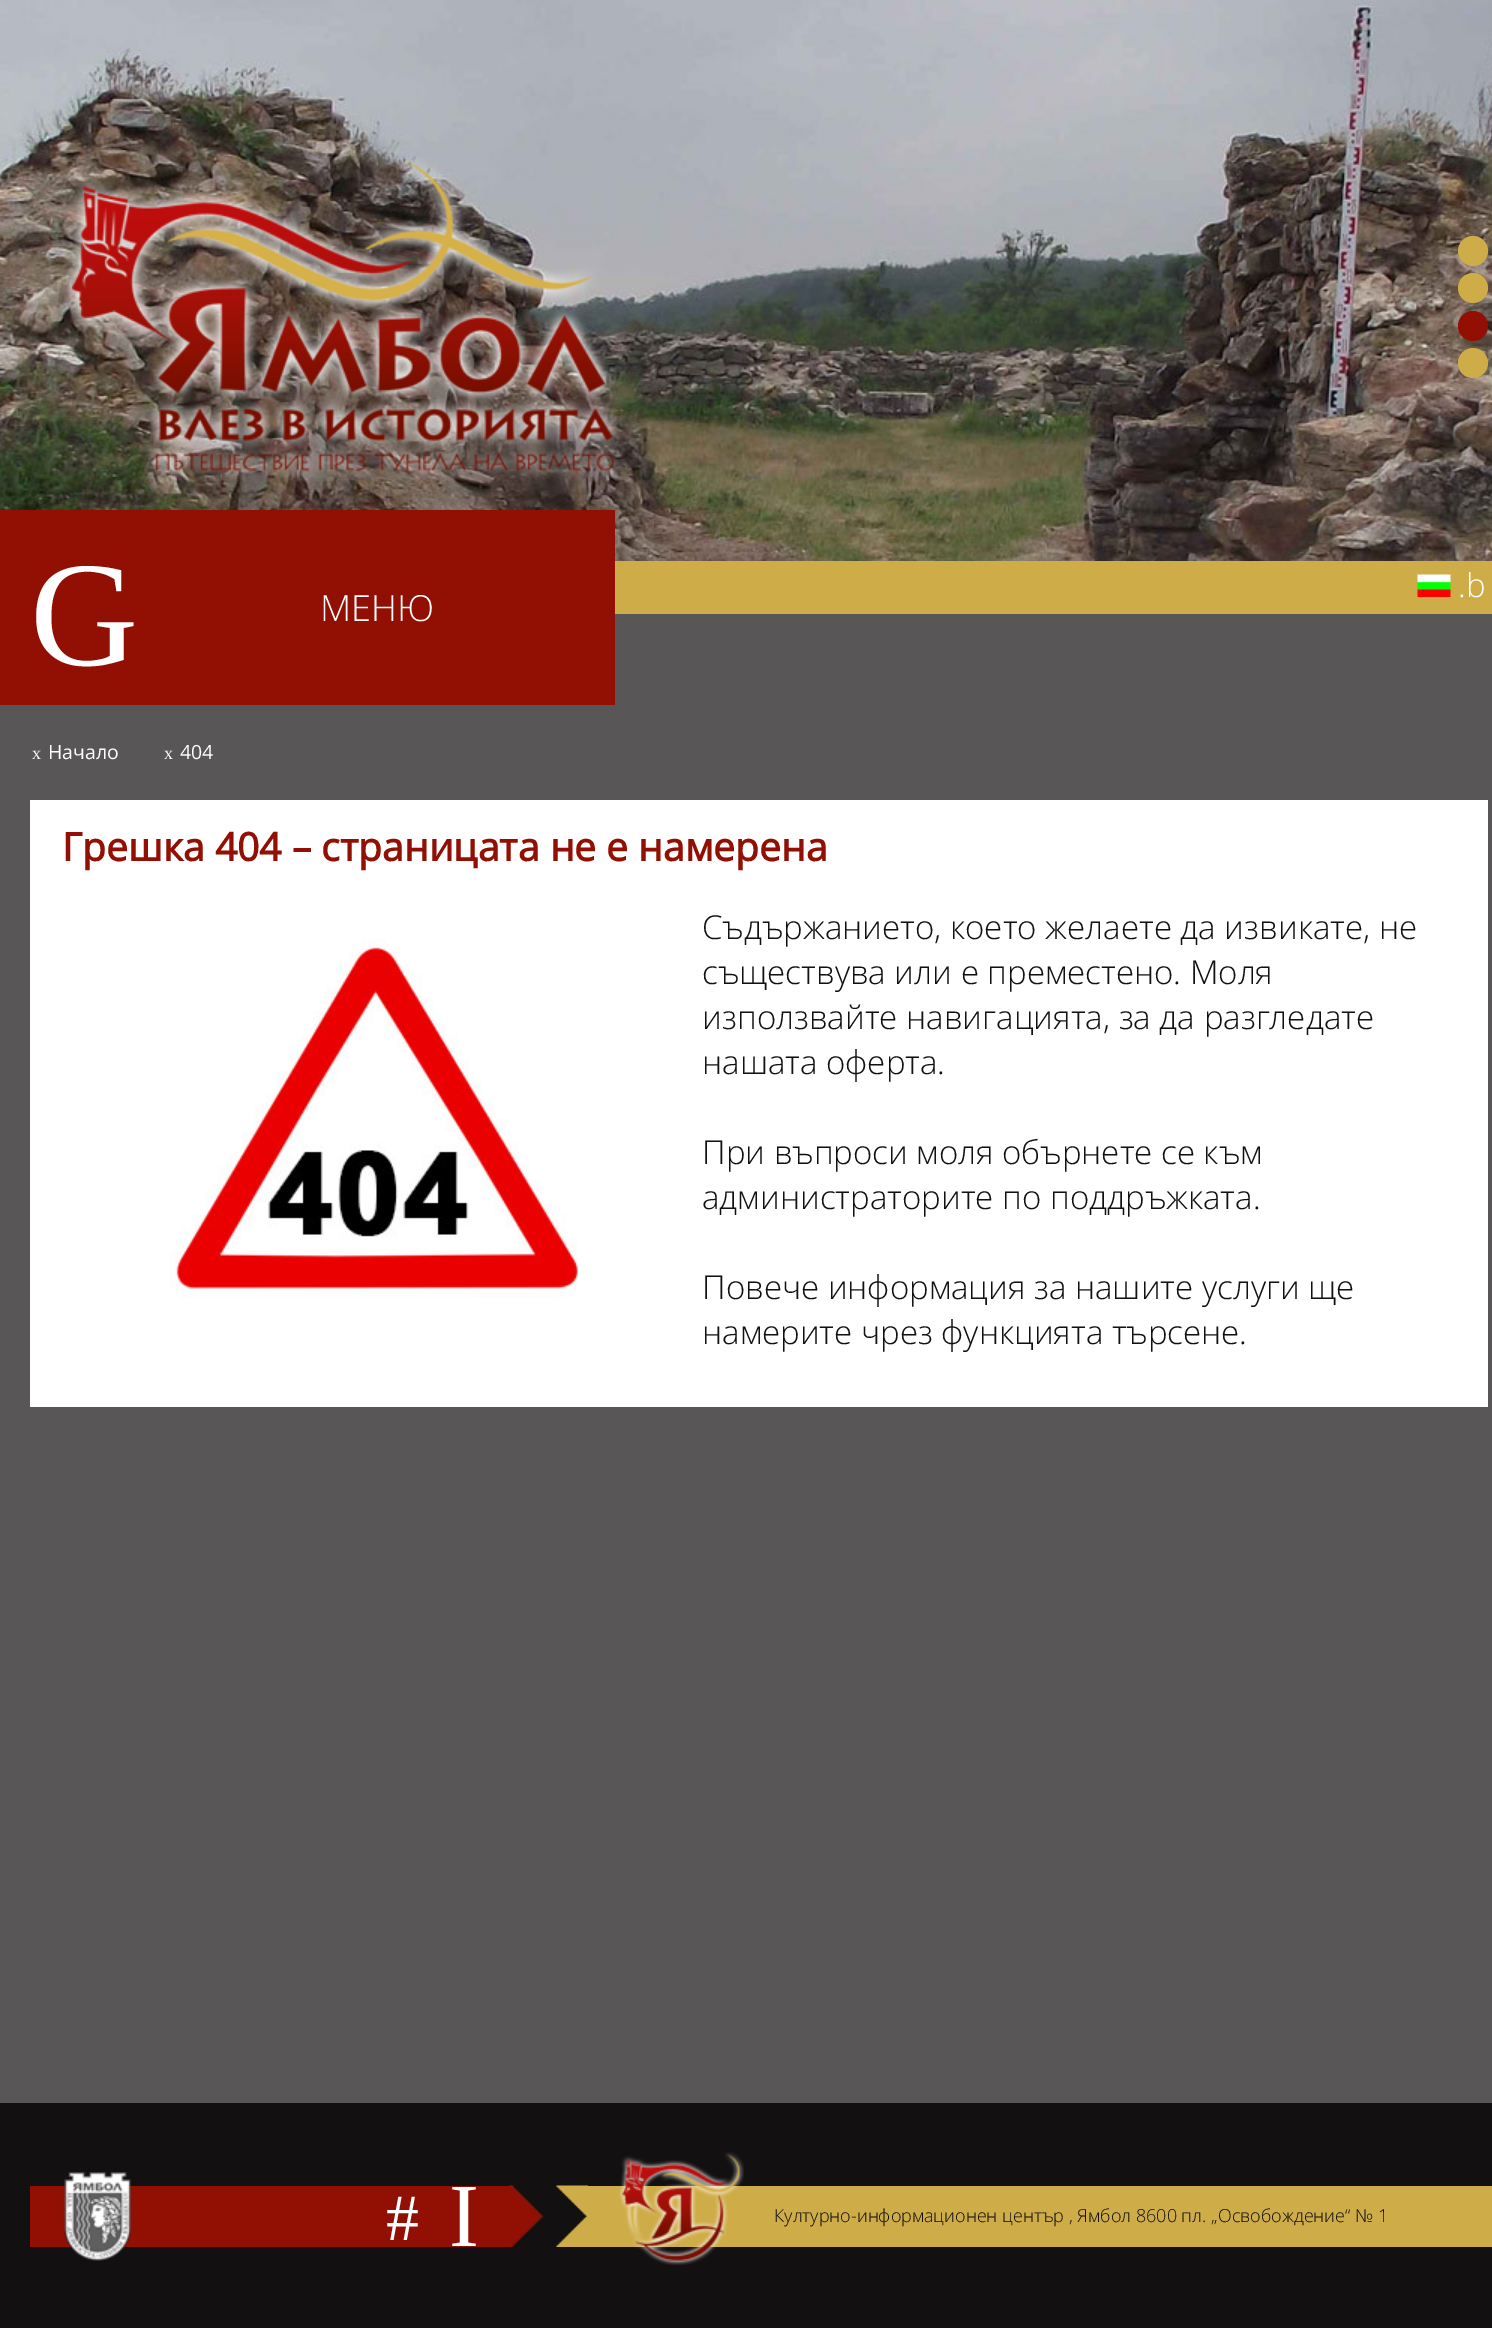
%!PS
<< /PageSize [1492 2328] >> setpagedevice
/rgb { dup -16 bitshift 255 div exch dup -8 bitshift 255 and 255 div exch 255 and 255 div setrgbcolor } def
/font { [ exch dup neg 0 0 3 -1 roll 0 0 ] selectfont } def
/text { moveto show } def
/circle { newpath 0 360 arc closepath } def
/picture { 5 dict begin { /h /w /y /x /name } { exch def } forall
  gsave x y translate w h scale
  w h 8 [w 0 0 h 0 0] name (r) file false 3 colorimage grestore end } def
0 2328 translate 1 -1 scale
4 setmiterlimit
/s1 { /LiberationSerif-Regular 150 font 16#FFFFFF rgb } def
/s2 { /OpenSans-Light 36 font 16#FFFFFF rgb } def
/s3 { /OpenSans-Light 33 font 16#FFFFFF rgb } def
/s4 { /LiberationSerif-Regular 18 font 16#FFFFFF rgb } def
/s5 { /OpenSans-Regular 19.5 font 16#FFFFFF rgb } def
/s6 { /OpenSans-Bold 39 font 16#921003 rgb } def
/s7 { /OpenSans-Light 33 font 16#121011 rgb } def
/s8 { /LiberationSerif-Regular 66 font 16#FFFFFF rgb } def
/s9 { /LiberationSerif-Regular 90 font 16#FFFFFF rgb } def
/s10 { /OpenSans-Light 18 font 16#121011 rgb } def
16#585657 rgb
0 0 1492 2328 rectfill
(pic1.raw) 0 0 1492 561 picture
16#921003 rgb
0 510 615 195 rectfill
s1
(G) 30 665 text
s2
(МЕНЮ) 320 621 text
(pic2.raw) 62 157 562 324 picture
16#CEAC48 rgb
1473 251 15 circle fill
1473 288 15 circle fill
16#930F03 rgb
1473 326 15 circle fill
16#CEAC48 rgb
1473 363 15 circle fill
615 561 877 53 rectfill
(pic3.raw) 1417 574 34 23 picture
s3
(.b) 1458 597 text
s4
(x) 32 759 text
s5
(Начало) 48 759 text
s4
(x) 164 759 text
s5
(404) 180 759 text
30 800 1458 607 rectfill
s6
(Грешка 404 – страницата не е намерена) 62 861 text
(pic4.raw) 169 939 409 360 picture
s7
(Съдържанието, което желаете да извикате, не) 702 939 text
(съществува или е преместено. Моля) 702 984 text
(използвайте навигацията, за да разгледате) 702 1029 text
(нашата оферта.) 702 1074 text
(При въпроси моля обърнете се към) 702 1164 text
(администраторите по поддръжката.) 702 1209 text
(Повече информация за нашите услуги ще) 702 1299 text
(намерите чрез функцията търсене.) 702 1344 text
0 2103 1492 225 rectfill
(pic6.raw) 508 2185 80 62 picture
16#921003 rgb
30 2186 479 61 rectfill
(pic5.raw) 64 2172 67 89 picture
s8
(#) 386 2240 text
s9
(I) 449 2246 text
16#CEAC48 rgb
588 2186 904 61 rectfill
(pic7.raw) 618 2152 126 113 picture
s10
(Културно-информационен център , Ямбол 8600 пл. „Освобождение“ № 1) 774 2222 text
showpage
